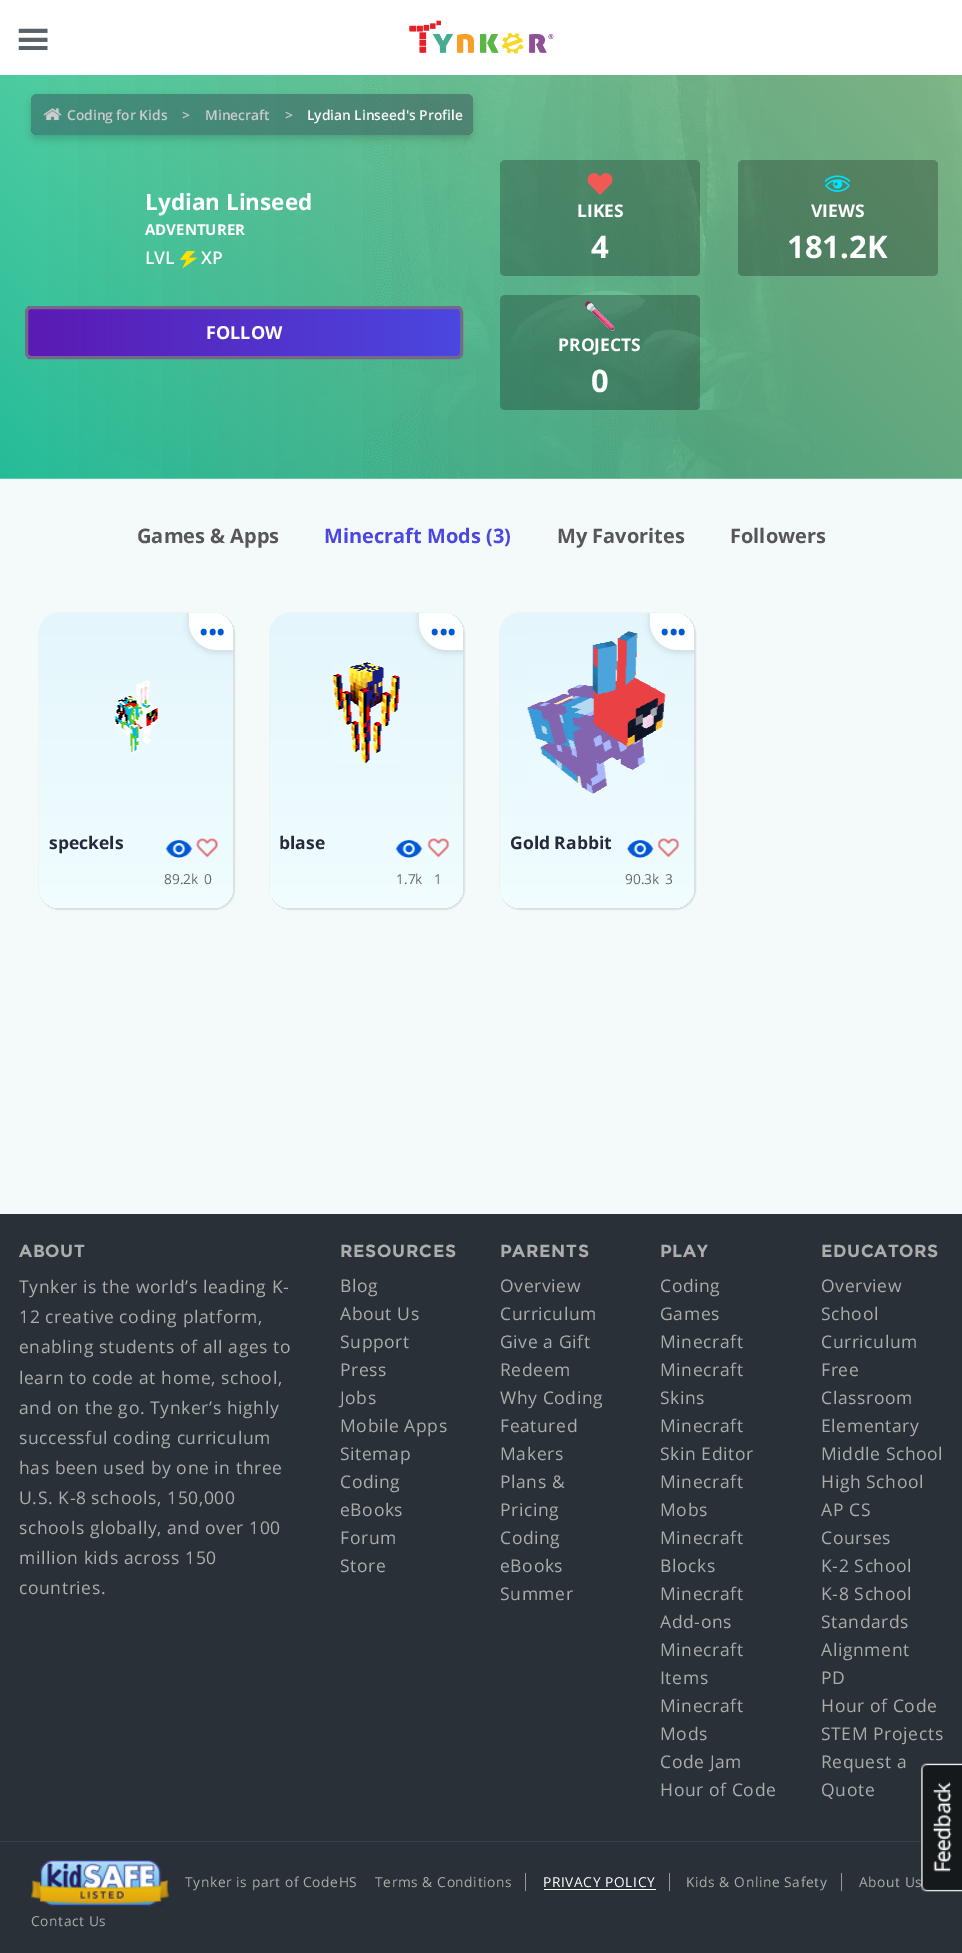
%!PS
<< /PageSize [962 1953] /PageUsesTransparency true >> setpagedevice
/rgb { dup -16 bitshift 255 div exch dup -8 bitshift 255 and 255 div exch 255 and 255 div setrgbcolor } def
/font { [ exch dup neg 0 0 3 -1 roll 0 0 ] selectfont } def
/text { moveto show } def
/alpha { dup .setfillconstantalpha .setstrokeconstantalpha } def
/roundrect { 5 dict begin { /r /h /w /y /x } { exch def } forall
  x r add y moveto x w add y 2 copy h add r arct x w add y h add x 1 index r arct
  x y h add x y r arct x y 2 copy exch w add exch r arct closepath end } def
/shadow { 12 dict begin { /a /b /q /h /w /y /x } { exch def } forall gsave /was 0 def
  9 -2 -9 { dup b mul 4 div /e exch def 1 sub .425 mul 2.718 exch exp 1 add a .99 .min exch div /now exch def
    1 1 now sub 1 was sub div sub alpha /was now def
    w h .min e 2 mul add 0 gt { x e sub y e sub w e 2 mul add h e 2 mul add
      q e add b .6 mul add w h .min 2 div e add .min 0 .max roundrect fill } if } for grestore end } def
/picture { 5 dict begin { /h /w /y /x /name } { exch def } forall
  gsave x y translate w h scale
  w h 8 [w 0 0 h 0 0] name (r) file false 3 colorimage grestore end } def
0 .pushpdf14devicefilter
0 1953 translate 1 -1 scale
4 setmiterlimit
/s1 { /OpenSans-SemiBold 13.75 font 16#CCCCCC rgb } def
/s2 { /OpenSans-SemiBold 13.75 font 16#F8F8F8 rgb } def
/s3 { /OpenSans-Bold 22.5 font 16#FEFEFE rgb } def
/s4 { /OpenSans-Bold 15 font 16#FEFEFE rgb } def
/s5 { /OpenSans-SemiBold 17.5 font 16#FEFEFE rgb } def
/s6 { /OpenSans-Bold 18 font 16#FEFEFE rgb } def
/s7 { /OpenSans-Bold 17.5 font 16#FEFEFE rgb } def
/s8 { /OpenSans-Bold 31 font 16#FEFEFE rgb } def
/s9 { /OpenSans-Bold 20 font 16#575757 rgb } def
/s10 { /OpenSans-Bold 20 font 16#4B47E0 rgb } def
/s11 { /OpenSans-Bold 17.5 font 16#25293A rgb } def
/s12 { /OpenSans-Regular 13.75 font 16#666666 rgb } def
16#F4F9FA rgb
0 0 962 1953 rectfill
16#FFFFFF rgb
0 0 962 75 rectfill
(pic1.raw) 18 28 30 22 picture
(pic2.raw) 409 20 145 34 picture
(pic3.raw) 0 75 962 404 picture
gsave
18 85 moveto 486 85 lineto 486 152 lineto 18 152 lineto closepath 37 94 moveto 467 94 lineto 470.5 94 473 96.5 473 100 curveto 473 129 lineto 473 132.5 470.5 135 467 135 curveto 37 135 lineto 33.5 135 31 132.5 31 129 curveto 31 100 lineto 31 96.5 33.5 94 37 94 curveto closepath eoclip newpath
16#000000 rgb
31 98 442 41 6 4 0.16 shadow
grestore
0.4 alpha
16#2E3347 rgb
31 94 442 41 6 roundrect fill
1 alpha
(pic4.raw) 43 108 19 13 picture
s1
(Coding for Kids) 67 120 text
(>) 182 120 text
(Minecraft) 205 120 text
(>) 285 120 text
s2
(Lydian Linseed's Profile) 307 120 text
s3
(Lydian Linseed) 145 210 text
s4
(ADVENTURER) 145 235 text
s5
(LVL) 145 264 text
(pic5.raw) 180 251 18 18 picture
(XP) 201 264 text
gsave
25 306 438 53 6 roundrect clip newpath
gsave 28 306 moveto 460 306 lineto 460 359 lineto 28 359 lineto closepath clip newpath
<< /ShadingType 2 /ColorSpace /DeviceRGB /Coords [28 333 460 333] /Extend [true true] /Function << /FunctionType 2 /Domain [0 1] /C0 [0.357 0.102 0.702] /C1 [0.294 0.278 0.878] /N 1 >> >> shfill grestore
grestore
16#766889 rgb
3 setlinewidth
26.5 307.5 435 50 4.5 roundrect stroke
s6
(FOLLOW) 206 339 text
0.25 alpha
16#000000 rgb
500 160 200 116 5 roundrect fill
1 alpha
(pic6.raw) 587 173 26 22 picture
s7
(LIKES) 577 217 text
s8
(4) 591 258 text
0.25 alpha
16#000000 rgb
738 160 200 116 5 roundrect fill
1 alpha
(pic7.raw) 825 175 25 17 picture
s7
(VIEWS) 811 217 text
s8
(181.2K) 787 258 text
0.25 alpha
16#000000 rgb
500 295 200 115 5 roundrect fill
1 alpha
(pic8.raw) 585 301 31 30 picture
s7
(PROJECTS) 558 351 text
s8
(0) 591 392 text
s9
(Games & Apps) 137 543 text
s10
(Minecraft Mods \(3\)) 324 543 text
s9
(My Favorites) 557 543 text
(Followers) 730 543 text
16#000000 rgb
39 613 196 297 21 0.5 0.1 shadow
gsave 39 613 194 295 20 roundrect clip newpath
<< /ShadingType 2 /ColorSpace /DeviceRGB /Coords [136 613 136 908] /Extend [true true] /Function << /FunctionType 2 /Domain [0 1] /C0 [0.894 0.965 0.988] /C1 [0.945 0.992 1] /N 1 >> >> shfill grestore
gsave
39 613 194 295 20 roundrect clip newpath
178 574 moveto 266 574 lineto 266 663 lineto 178 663 lineto closepath 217 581 moveto 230 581 lineto 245.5 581 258 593.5 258 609 curveto 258 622 lineto 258 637.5 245.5 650 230 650 curveto 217 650 lineto 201.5 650 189 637.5 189 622 curveto 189 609 lineto 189 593.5 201.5 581 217 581 curveto closepath eoclip newpath
188 584 68 69 28 3 0.1 shadow
grestore
gsave
39 613 194 295 20 roundrect clip newpath
0.98 alpha
16#FFFFFF rgb
189 581 69 69 28 roundrect fill
grestore
/OpenSans-Regular 51 font
16#0058D7 rgb
197 650 moveto -5 0 (···) ashow
(pic9.raw) 115 680 43 74 picture
s11
(speckels) 49 849 text
(pic10.raw) 165 839 28 19 picture
s12
(89.2k) 164 884 text
(pic11.raw) 196 838 22 20 picture
(0) 204 884 text
16#000000 rgb
270 613 195 297 21 0.5 0.1 shadow
gsave 270 613 193 295 20 roundrect clip newpath
<< /ShadingType 2 /ColorSpace /DeviceRGB /Coords [366 613 366 908] /Extend [true true] /Function << /FunctionType 2 /Domain [0 1] /C0 [0.894 0.965 0.988] /C1 [0.945 0.992 1] /N 1 >> >> shfill grestore
gsave
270 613 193 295 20 roundrect clip newpath
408 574 moveto 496 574 lineto 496 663 lineto 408 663 lineto closepath 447 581 moveto 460 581 lineto 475.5 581 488 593.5 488 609 curveto 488 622 lineto 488 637.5 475.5 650 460 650 curveto 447 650 lineto 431.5 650 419 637.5 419 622 curveto 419 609 lineto 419 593.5 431.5 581 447 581 curveto closepath eoclip newpath
418 584 68 69 28 3 0.1 shadow
grestore
gsave
270 613 193 295 20 roundrect clip newpath
0.98 alpha
16#FFFFFF rgb
419 581 69 69 28 roundrect fill
grestore
/OpenSans-Regular 51 font
16#0058D7 rgb
428 650 moveto -5 0 (···) ashow
(pic12.raw) 333 662 67 101 picture
s11
(blase) 279 849 text
(pic10.raw) 395 839 28 19 picture
s12
(1.7k) 396 884 text
(pic13.raw) 427 838 23 20 picture
(1) 434 884 text
16#000000 rgb
500 613 196 297 21 0.5 0.1 shadow
gsave 500 613 194 295 20 roundrect clip newpath
<< /ShadingType 2 /ColorSpace /DeviceRGB /Coords [597 613 597 908] /Extend [true true] /Function << /FunctionType 2 /Domain [0 1] /C0 [0.894 0.965 0.988] /C1 [0.945 0.992 1] /N 1 >> >> shfill grestore
(pic14.raw) 527 631 139 163 picture
gsave
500 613 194 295 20 roundrect clip newpath
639 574 moveto 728 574 lineto 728 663 lineto 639 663 lineto closepath 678 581 moveto 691 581 lineto 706.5 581 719 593.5 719 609 curveto 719 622 lineto 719 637.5 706.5 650 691 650 curveto 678 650 lineto 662.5 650 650 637.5 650 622 curveto 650 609 lineto 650 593.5 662.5 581 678 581 curveto closepath eoclip newpath
649 584 69 69 28 3 0.1 shadow
grestore
gsave
500 613 194 295 20 roundrect clip newpath
0.98 alpha
16#FFFFFF rgb
650 581 69 69 28 roundrect fill
grestore
/OpenSans-Regular 51 font
16#0058D7 rgb
658 650 moveto -5 0 (···) ashow
s11
(Gold Rabbit) 510 849 text
(pic15.raw) 626 839 28 19 picture
s12
(90.3k) 625 884 text
(pic13.raw) 657 838 23 20 picture
(3) 665 884 text
16#293037 rgb
0 1214 962 739 rectfill
/Montserrat-Bold 17.5 font
16#ACACAC rgb
19 1257 moveto 0.6 0 (ABOUT) ashow
/OpenSans-Regular 17.5 font
19 1293 moveto 0.6 0 (Tynker is the world’s leading K-) ashow
19 1323 moveto 0.6 0 (12 creative coding platform,) ashow
19 1353 moveto 0.6 0 (enabling students of all ages to) ashow
19 1384 moveto 0.6 0 (learn to code at home, school,) ashow
19 1414 moveto 0.6 0 (and on the go. Tynker’s highly) ashow
19 1444 moveto 0.6 0 (successful coding curriculum) ashow
19 1474 moveto 0.6 0 (has been used by one in three) ashow
19 1504 moveto 0.6 0 (U.S. K-8 schools, 150,000) ashow
19 1534 moveto 0.6 0 (schools globally, and over 100) ashow
19 1564 moveto 0.6 0 (million kids across 150) ashow
19 1594 moveto 0.6 0 (countries.) ashow
/Montserrat-Bold 17.5 font
340 1257 moveto 0.6 0 (RESOURCES) ashow
/OpenSans-Regular 17.5 font
340 1292 moveto 0.6 0 (Blog) ashow
340 1320 moveto 0.6 0 (About Us) ashow
340 1348 moveto 0.6 0 (Support) ashow
340 1376 moveto 0.6 0 (Press) ashow
340 1404 moveto 0.6 0 (Jobs) ashow
340 1432 moveto 0.6 0 (Mobile Apps) ashow
340 1460 moveto 0.6 0 (Sitemap) ashow
340 1488 moveto 0.6 0 (Coding) ashow
340 1516 moveto 0.6 0 (eBooks) ashow
340 1544 moveto 0.6 0 (Forum) ashow
340 1572 moveto 0.6 0 (Store) ashow
/Montserrat-Bold 17.5 font
500 1257 moveto 0.6 0 (PARENTS) ashow
/OpenSans-Regular 17.5 font
500 1292 moveto 0.6 0 (Overview) ashow
500 1320 moveto 0.6 0 (Curriculum) ashow
500 1348 moveto 0.6 0 (Give a Gift) ashow
500 1376 moveto 0.6 0 (Redeem) ashow
500 1404 moveto 0.6 0 (Why Coding) ashow
500 1432 moveto 0.6 0 (Featured) ashow
500 1460 moveto 0.6 0 (Makers) ashow
500 1488 moveto 0.6 0 (Plans &) ashow
500 1516 moveto 0.6 0 (Pricing) ashow
500 1544 moveto 0.6 0 (Coding) ashow
500 1572 moveto 0.6 0 (eBooks) ashow
500 1600 moveto 0.6 0 (Summer) ashow
/Montserrat-Bold 17.5 font
660 1257 moveto 0.6 0 (PLAY) ashow
/OpenSans-Regular 17.5 font
660 1292 moveto 0.6 0 (Coding) ashow
660 1320 moveto 0.6 0 (Games) ashow
660 1348 moveto 0.6 0 (Minecraft) ashow
660 1376 moveto 0.6 0 (Minecraft) ashow
660 1404 moveto 0.6 0 (Skins) ashow
660 1432 moveto 0.6 0 (Minecraft) ashow
660 1460 moveto 0.6 0 (Skin Editor) ashow
660 1488 moveto 0.6 0 (Minecraft) ashow
660 1516 moveto 0.6 0 (Mobs) ashow
660 1544 moveto 0.6 0 (Minecraft) ashow
660 1572 moveto 0.6 0 (Blocks) ashow
660 1600 moveto 0.6 0 (Minecraft) ashow
660 1628 moveto 0.6 0 (Add-ons) ashow
660 1656 moveto 0.6 0 (Minecraft) ashow
660 1684 moveto 0.6 0 (Items) ashow
660 1712 moveto 0.6 0 (Minecraft) ashow
660 1740 moveto 0.6 0 (Mods) ashow
660 1768 moveto 0.6 0 (Code Jam) ashow
660 1796 moveto 0.6 0 (Hour of Code) ashow
/Montserrat-Bold 17.5 font
821 1257 moveto 0.6 0 (EDUCATORS) ashow
/OpenSans-Regular 17.5 font
821 1292 moveto 0.6 0 (Overview) ashow
821 1320 moveto 0.6 0 (School) ashow
821 1348 moveto 0.6 0 (Curriculum) ashow
821 1376 moveto 0.6 0 (Free) ashow
821 1404 moveto 0.6 0 (Classroom) ashow
821 1432 moveto 0.6 0 (Elementary) ashow
821 1460 moveto 0.6 0 (Middle School) ashow
821 1488 moveto 0.6 0 (High School) ashow
821 1516 moveto 0.6 0 (AP CS) ashow
821 1544 moveto 0.6 0 (Courses) ashow
821 1572 moveto 0.6 0 (K-2 School) ashow
821 1600 moveto 0.6 0 (K-8 School) ashow
821 1628 moveto 0.6 0 (Standards) ashow
821 1656 moveto 0.6 0 (Alignment) ashow
821 1684 moveto 0.6 0 (PD) ashow
821 1712 moveto 0.6 0 (Hour of Code) ashow
821 1740 moveto 0.6 0 (STEM Projects) ashow
821 1768 moveto 0.6 0 (Request a) ashow
821 1796 moveto 0.6 0 (Quote) ashow
16#353E46 rgb
0 1841 922 1 rectfill
/OpenSans-Regular 13.75 font
16#ACACAC rgb
859 1887 moveto 0.6 0 (About Us) ashow
(pic16.raw) 921 1763 41 129 picture
(pic17.raw) 31 1860 138 47 picture
185 1887 moveto 0.6 0 (Tynker is part of CodeHS) ashow
375 1887 moveto 0.6 0 (Terms & Conditions) ashow
16#999999 rgb
525 1873 1 18 rectfill
16#FEFEFE rgb
543 1887 moveto 0.6 0 (PRIVACY POLICY) ashow
16#999999 rgb
669 1873 1 18 rectfill
16#FEFEFE rgb
544 1889 112 1 rectfill
16#ACACAC rgb
686 1887 moveto 0.6 0 (Kids & Online Safety) ashow
16#999999 rgb
841 1873 1 18 rectfill
16#ACACAC rgb
31 1926 moveto 0.6 0 (Contact Us) ashow
.poppdf14devicefilter showpage
